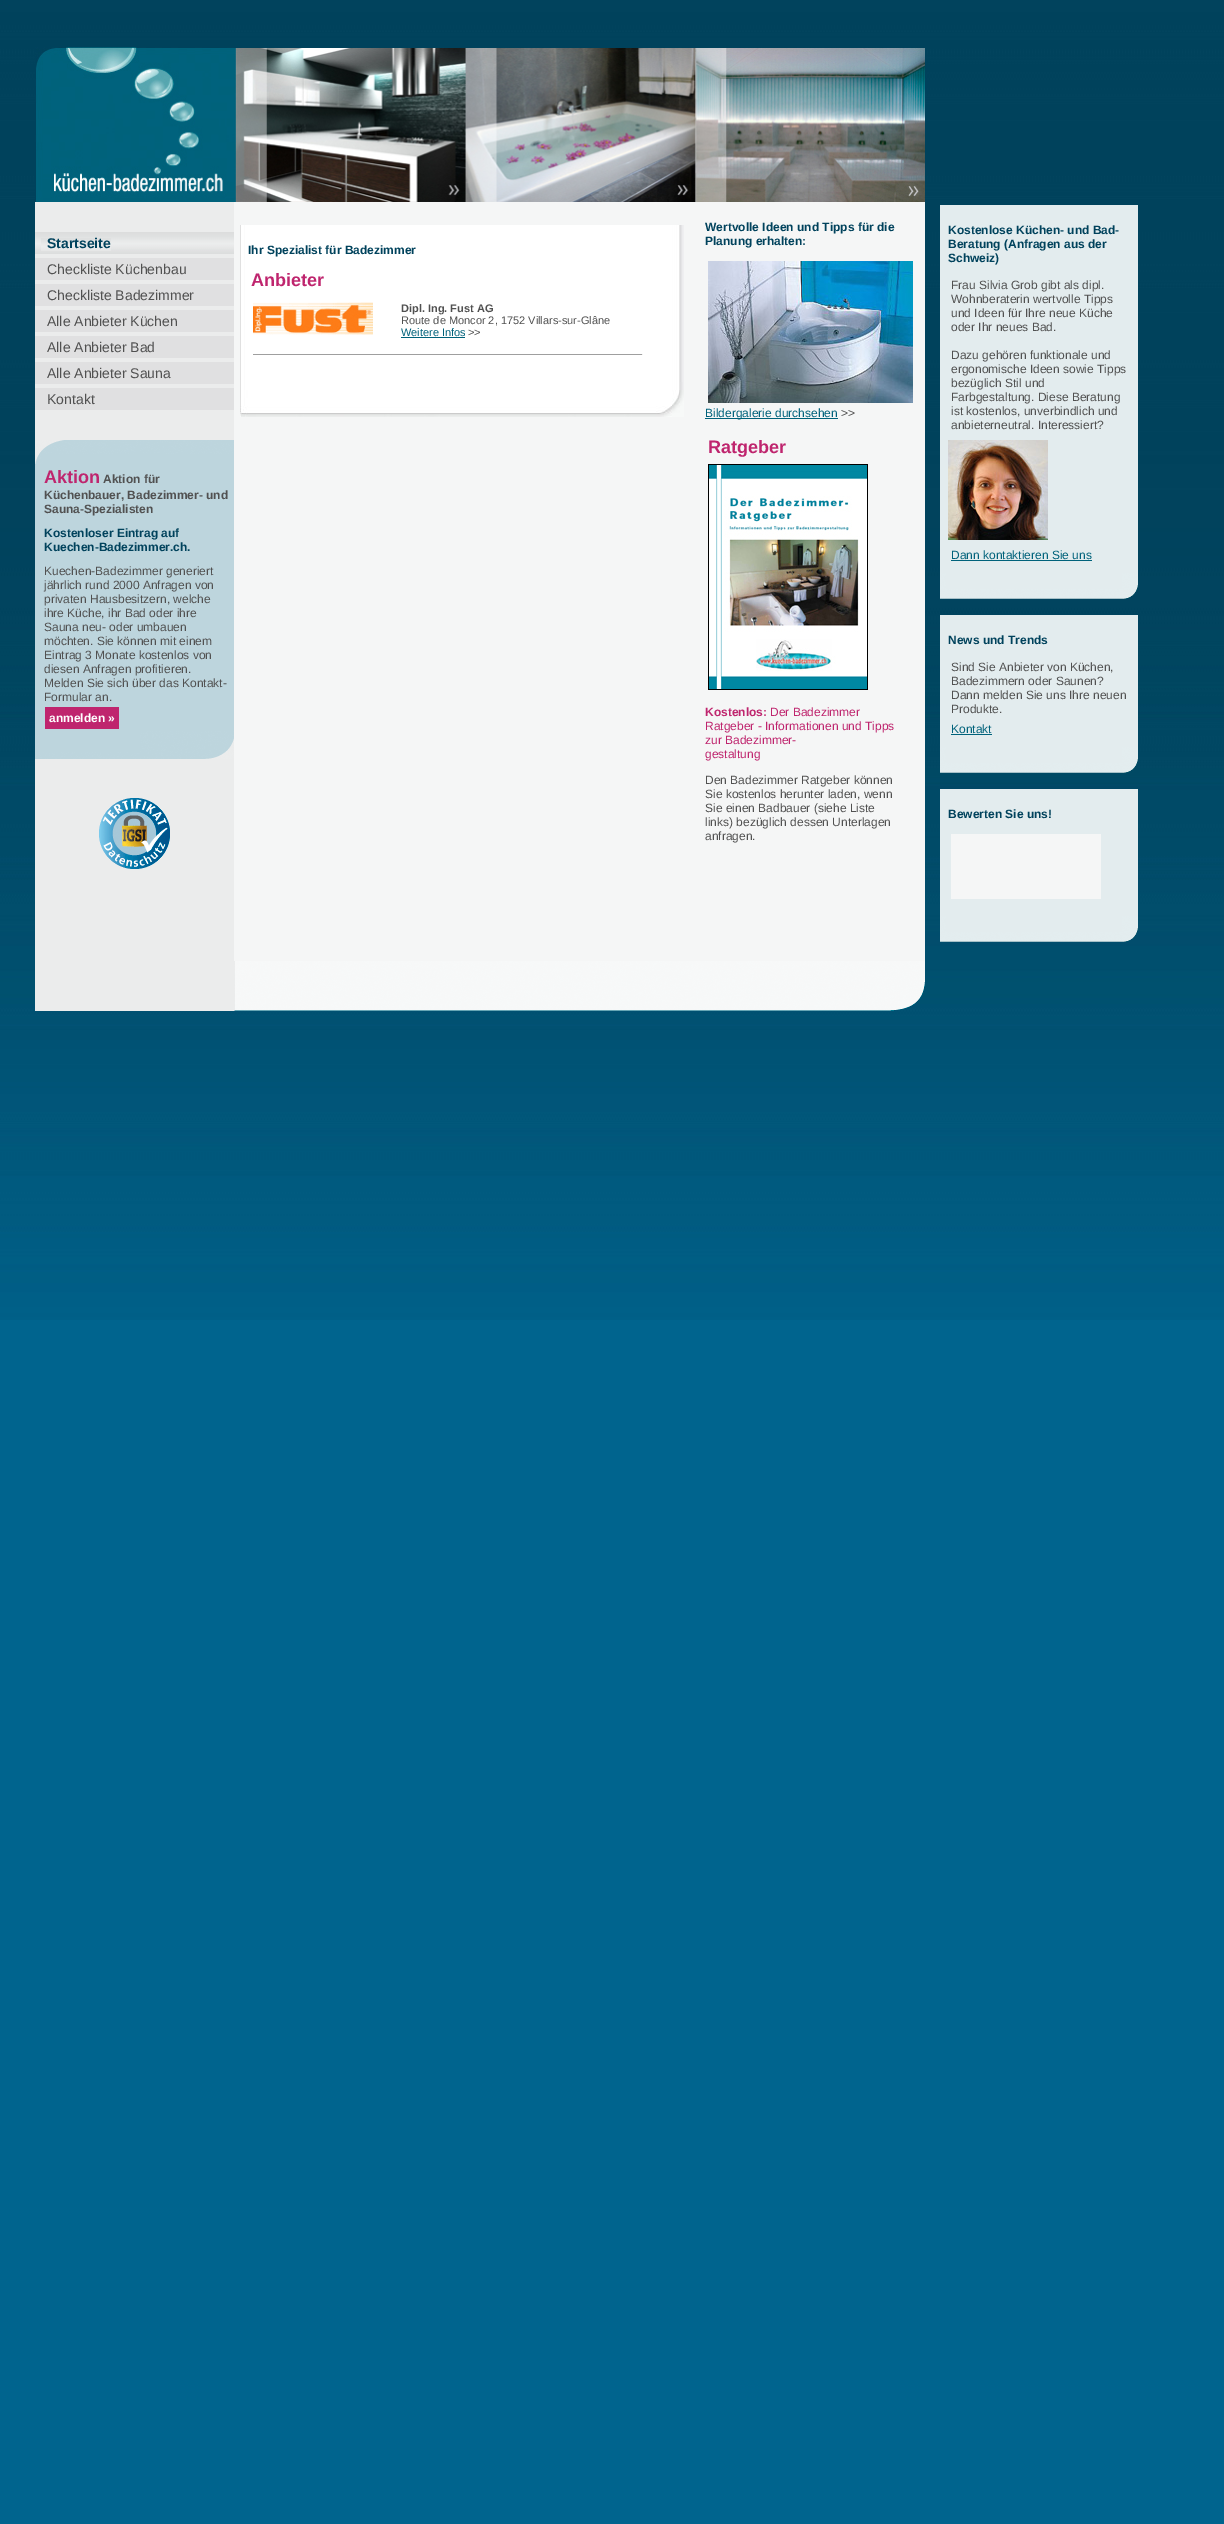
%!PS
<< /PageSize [1224 2524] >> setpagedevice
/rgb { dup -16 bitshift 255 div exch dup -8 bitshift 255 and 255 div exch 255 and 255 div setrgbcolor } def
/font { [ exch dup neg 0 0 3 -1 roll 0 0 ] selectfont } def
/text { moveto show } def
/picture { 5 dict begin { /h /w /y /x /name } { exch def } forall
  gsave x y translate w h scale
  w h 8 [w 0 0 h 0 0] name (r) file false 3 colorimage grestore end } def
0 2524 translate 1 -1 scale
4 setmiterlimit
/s1 { /LiberationSans-Bold 14 font 16#00425C rgb } def
/s2 { /LiberationSans-Regular 14 font 16#515151 rgb } def
/s3 { /LiberationSans-Bold 18 font 16#BF256E rgb } def
/s4 { /LiberationSans-Bold 12 font 16#515151 rgb } def
/s5 { /LiberationSans-Bold 12 font 16#00425C rgb } def
/s6 { /LiberationSans-Regular 12 font 16#515151 rgb } def
/s7 { /LiberationSans-Bold 12 font 16#FFFFFF rgb } def
/s8 { /LiberationSans-Bold 11 font 16#515151 rgb } def
/s9 { /LiberationSans-Regular 11 font 16#515151 rgb } def
/s10 { /LiberationSans-Regular 11 font 16#00627B rgb } def
/s11 { /LiberationSans-Regular 12 font 16#00627B rgb } def
/s12 { /LiberationSans-Bold 12 font 16#BF256E rgb } def
/s13 { /LiberationSans-Regular 12 font 16#BF256E rgb } def
16#00648E rgb
0 0 1224 2524 rectfill
(pic1.raw) 0 0 1224 1320 picture
(pic2.raw) 35 47 890 155 picture
16#EBECEC rgb
35 202 199 809 rectfill
(pic3.raw) 35 232 199 22 picture
(pic4.raw) 41 238 70 13 picture
s1
(Startseite) 47 248 text
16#E0E0E1 rgb
35 258 199 22 rectfill
s2
(Checkliste Küchenbau) 47 274 text
16#E0E0E1 rgb
35 284 199 22 rectfill
s2
(Checkliste Badezimmer) 47 300 text
16#E0E0E1 rgb
35 310 199 22 rectfill
s2
(Alle Anbieter Küchen) 47 326 text
16#E0E0E1 rgb
35 336 199 22 rectfill
s2
(Alle Anbieter Bad) 47 352 text
16#E0E0E1 rgb
35 362 199 22 rectfill
s2
(Alle Anbieter Sauna) 47 378 text
16#E0E0E1 rgb
35 388 199 22 rectfill
s2
(Kontakt) 47 404 text
(pic5.raw) 35 440 199 24 picture
16#BDD5DD rgb
35 464 199 267 rectfill
s3
(Aktion) 44 483 text
s4
(Aktion für) 103 483 text
(Küchenbauer, Badezimmer- und) 44 499 text
(Sauna-Spezialisten) 44 513 text
s5
(Kostenloser Eintrag auf) 44 537 text
(Kuechen-Badezimmer.ch.) 44 551 text
s6
(Kuechen-Badezimmer generiert) 44 575 text
(jährlich rund 2000 Anfragen von) 44 589 text
(privaten Hausbesitzern, welche) 44 603 text
(ihre Küche, ihr Bad oder ihre) 44 617 text
(Sauna neu- oder umbauen) 44 631 text
(möchten. Sie können mit einem) 44 645 text
(Eintrag 3 Monate kostenlos von) 44 659 text
(diesen Anfragen profitieren.) 44 673 text
(Melden Sie sich über das Kontakt-) 44 687 text
(Formular an.) 44 701 text
16#BF256E rgb
45 707 74 22 rectfill
s7
(anmelden ») 49 722 text
(pic6.raw) 35 731 199 28 picture
(pic7.raw) 99 798 71 71 picture
16#F5F6F6 rgb
234 202 691 759 rectfill
(pic8.raw) 240 225 444 149 picture
s5
(Ihr Spezialist für Badezimmer) 248 254 text
s3
(Anbieter) 251 286 text
(pic9.raw) 253 302 120 33 picture
s8
(Dipl. Ing. Fust AG) 401 312 text
s9
(Route de Moncor 2, 1752 Villars-sur-Glâne) 401 324 text
s10
(Weitere Infos) 401 336 text
401 337 64 1 rectfill
s9
(>>) 468 336 text
16#9F9F9F rgb
253 354 390 1 rectfill
16#EEEEEE rgb
642 354 1 1 rectfill
(pic10.raw) 240 374 444 43 picture
s5
(Wertvolle Ideen und Tipps für die) 705 231 text
(Planung erhalten:) 705 245 text
(pic11.raw) 708 261 205 142 picture
16#00627B rgb
705 418 133 1 rectfill
s11
(Bildergalerie durchsehen) 705 417 text
s6
(>>) 841 417 text
s3
(Ratgeber) 708 453 text
(pic12.raw) 708 464 160 226 picture
s12
(Kostenlos:) 705 716 text
s13
(Der Badezimmer) 770 716 text
(Ratgeber - Informationen und Tipps) 705 730 text
(zur Badezimmer-) 705 744 text
(gestaltung) 705 758 text
s6
(Den Badezimmer Ratgeber können) 705 784 text
(Sie kostenlos herunter laden, wenn) 705 798 text
(Sie einen Badbauer \(siehe Liste) 705 812 text
(links\) bezüglich dessen Unterlagen) 705 826 text
(anfragen.) 705 840 text
16#E3ECEE rgb
940 205 198 368 rectfill
s5
(Kostenlose Küchen- und Bad-) 948 234 text
(Beratung \(Anfragen aus der) 948 248 text
(Schweiz\)) 948 262 text
s6
(Frau Silvia Grob gibt als dipl.) 951 289 text
(Wohnberaterin wertvolle Tipps) 951 303 text
(und Ideen für Ihre neue Küche) 951 317 text
(oder Ihr neues Bad.) 951 331 text
(Dazu gehören funktionale und) 951 359 text
(ergonomische Ideen sowie Tipps) 951 373 text
(bezüglich Stil und) 951 387 text
(Farbgestaltung. Diese Beratung) 951 401 text
(ist kostenlos, unverbindlich und) 951 415 text
(anbieterneutral. Interessiert?) 951 429 text
(pic13.raw) 948 440 100 100 picture
s11
(Dann kontaktieren Sie uns) 951 559 text
951 560 141 1 rectfill
(pic14.raw) 940 573 198 26 picture
16#E3ECEE rgb
940 615 198 132 rectfill
s5
(News und Trends) 948 644 text
s6
(Sind Sie Anbieter von Küchen,) 951 671 text
(Badezimmern oder Saunen?) 951 685 text
(Dann melden Sie uns Ihre neuen) 951 699 text
(Produkte.) 951 713 text
s11
(Kontakt) 951 733 text
951 734 41 1 rectfill
(pic15.raw) 940 747 198 26 picture
16#E3ECEE rgb
940 789 198 127 rectfill
s5
(Bewerten Sie uns!) 948 818 text
16#F5F6F6 rgb
951 834 150 65 rectfill
(pic16.raw) 940 916 198 26 picture
(pic17.raw) 234 961 691 50 picture
showpage
